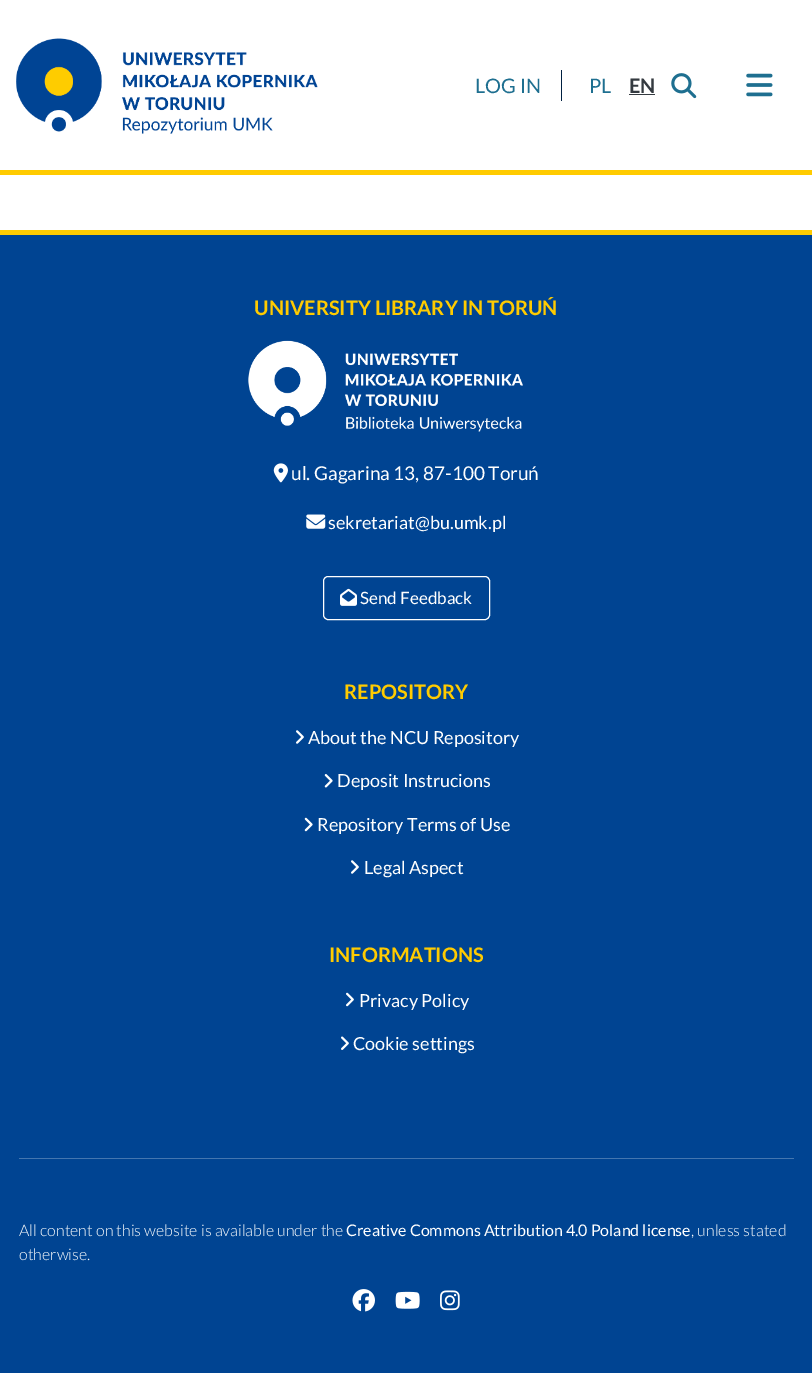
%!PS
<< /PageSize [812 1373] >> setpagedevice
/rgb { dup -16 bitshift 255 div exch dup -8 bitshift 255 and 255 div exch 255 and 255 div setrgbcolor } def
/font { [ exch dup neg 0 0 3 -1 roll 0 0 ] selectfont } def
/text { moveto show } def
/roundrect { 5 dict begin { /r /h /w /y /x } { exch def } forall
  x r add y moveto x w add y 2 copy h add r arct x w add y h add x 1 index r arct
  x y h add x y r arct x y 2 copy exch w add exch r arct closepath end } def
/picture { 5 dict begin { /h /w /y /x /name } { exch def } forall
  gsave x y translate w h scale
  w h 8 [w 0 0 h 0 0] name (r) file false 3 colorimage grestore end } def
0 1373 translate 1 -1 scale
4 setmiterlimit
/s1 { /Lato-Regular 20 font 16#1E6F90 rgb } def
/s2 { /Lato-Bold 20 font 16#343A40 rgb } def
/s3 { /Lato-Bold 20 font 16#FFCB00 rgb } def
/s4 { /Lato-Regular 19 font 16#FFFFFF rgb } def
/s5 { /Lato-Regular 18 font 16#FFFFFF rgb } def
/s6 { /Lato-Regular 17 font 16#FFFFFF rgb } def
/s7 { /Lato-Light 16 font 16#FFFFFF rgb } def
/s8 { /Lato-Regular 16 font 16#FFFFFF rgb } def
16#FFFFFF rgb
0 0 812 1373 rectfill
16#FFCB00 rgb
0 170 812 5 rectfill
(pic1.raw) 16 38 302 96 picture
s1
(LOG IN) 475 93 text
16#002041 rgb
561 70 1 31 rectfill
s1
(PL) 589 93 text
s2
(EN) 629 93 text
629 94 26 1 rectfill
(pic2.raw) 671 73 26 26 picture
(pic3.raw) 746 73 27 24 picture
16#004492 rgb
0 235 812 1138 rectfill
16#FFCB00 rgb
0 230 812 5 rectfill
(UNIVERSITY LIBRARY IN TORUŃ) 254 315 text
(pic4.raw) 248 340 275 92 picture
(pic5.raw) 273 463 15 20 picture
s4
(ul. Gagarina 13, 87-100 Toruń) 291 480 text
(pic6.raw) 306 514 20 15 picture
s5
(sekretariat@bu.umk.pl) 328 529 text
323.5 576.5 166 43 4.5 roundrect stroke
(pic7.raw) 340 588 17 18 picture
s6
(Send Feedback) 360 604 text
s3
(REPOSITORY) 344 699 text
(pic8.raw) 296 730 8 14 picture
s5
(About the NCU Repository) 308 744 text
(pic9.raw) 324 774 9 14 picture
(Deposit Instrucions) 337 787 text
(pic10.raw) 304 817 9 15 picture
(Repository Terms of Use) 317 831 text
(pic8.raw) 351 860 8 14 picture
(Legal Aspect) 364 874 text
s3
(INFORMATIONS) 329 962 text
(pic11.raw) 346 992 8 15 picture
s5
(Privacy Policy) 359 1007 text
(pic12.raw) 341 1036 8 14 picture
(Cookie settings) 353 1050 text
16#4476AF rgb
19 1158 775 1 rectfill
s7
(All content on this website is available under the) 19 1236 text
s8
(Creative Commons Attribution 4.0 Poland license) 346 1236 text
s7
(, unless stated) 691 1236 text
(otherwise.) 19 1260 text
(pic13.raw) 352 1289 23 23 picture
(pic14.raw) 395 1291 25 18 picture
(pic15.raw) 440 1290 20 21 picture
showpage
